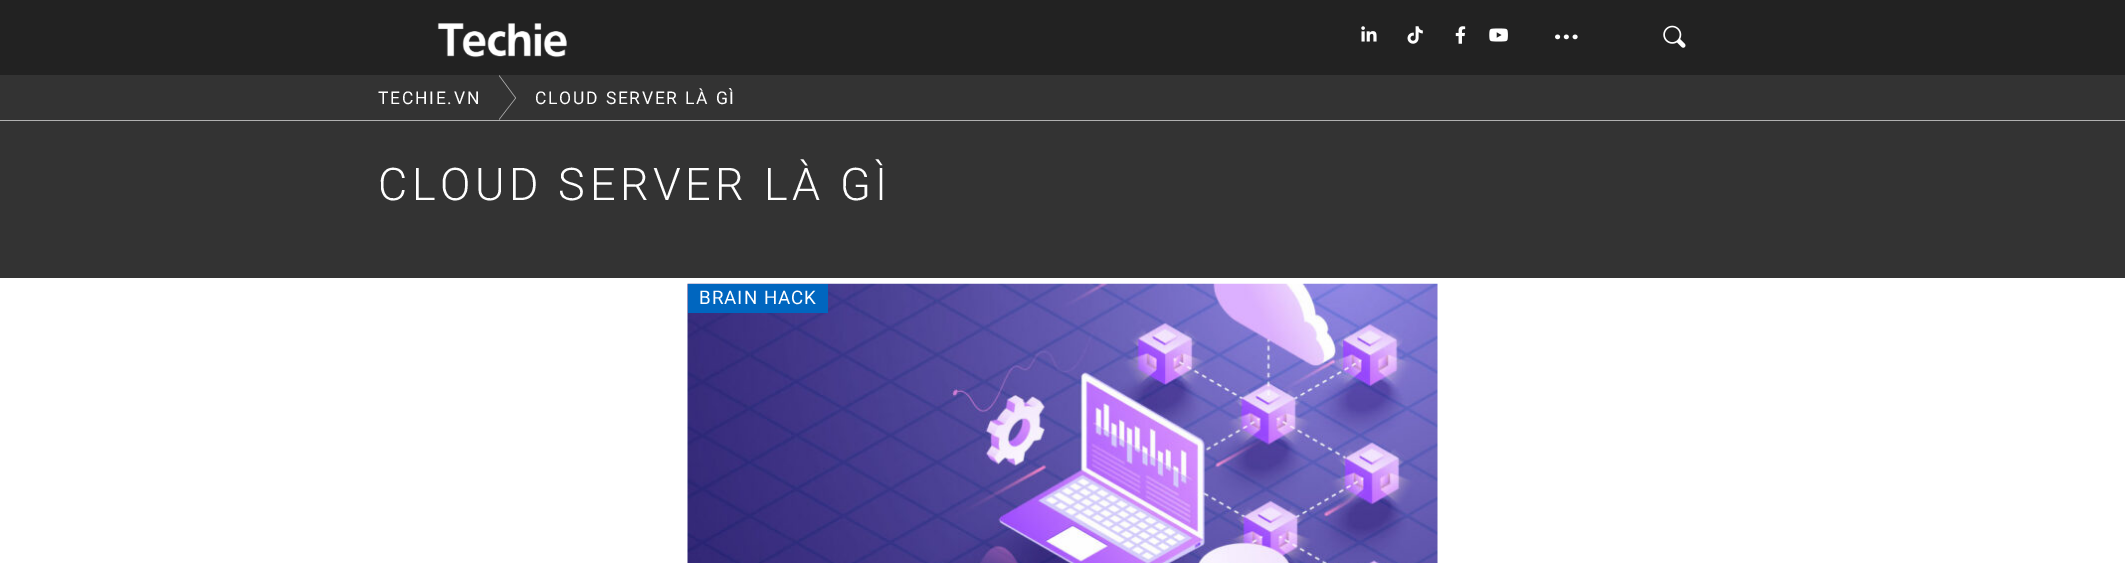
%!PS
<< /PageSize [2125 563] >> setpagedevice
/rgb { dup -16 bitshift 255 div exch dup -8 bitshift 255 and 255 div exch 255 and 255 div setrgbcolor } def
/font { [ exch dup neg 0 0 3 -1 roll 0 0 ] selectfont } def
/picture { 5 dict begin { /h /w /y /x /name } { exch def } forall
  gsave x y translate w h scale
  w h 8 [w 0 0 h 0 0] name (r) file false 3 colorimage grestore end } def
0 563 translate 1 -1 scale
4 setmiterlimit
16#FFFFFF rgb
0 0 2125 563 rectfill
16#222222 rgb
0 0 2125 75 rectfill
(pic1.raw) 437 23 130 35 picture
(pic2.raw) 1361 26 16 16 picture
(pic3.raw) 1407 26 16 18 picture
(pic4.raw) 1455 26 11 18 picture
(pic5.raw) 1489 28 19 14 picture
(pic6.raw) 1555 34 23 6 picture
(pic7.raw) 1663 25 23 23 picture
16#333333 rgb
0 75 2125 203 rectfill
16#B1B1B1 rgb
0 120 2125 1 rectfill
/Roboto-Regular 17.5 font
16#FFFFFF rgb
378 104 moveto 1.75 0 (TECHIE.VN) ashow
16#B1B1B1 rgb
499 120 moveto 499 75 lineto 516 98 lineto closepath fill
16#333333 rgb
498 120 moveto 498 75 lineto 515 98 lineto closepath fill
16#FFFFFF rgb
535 104 moveto 1.75 0 (CLOUD SERVER LÀ GÌ) ashow
/Roboto-Light 45 font
378 200 moveto 4.5 0 (CLOUD SERVER LÀ GÌ) ashow
(pic8.raw) 687 283 751 280 picture
16#0066BF rgb
688 284 140 29 rectfill
/Roboto-Regular 18.75 font
16#FFFFFF rgb
699 304 moveto 1 0 (BRAIN HACK) ashow
showpage
